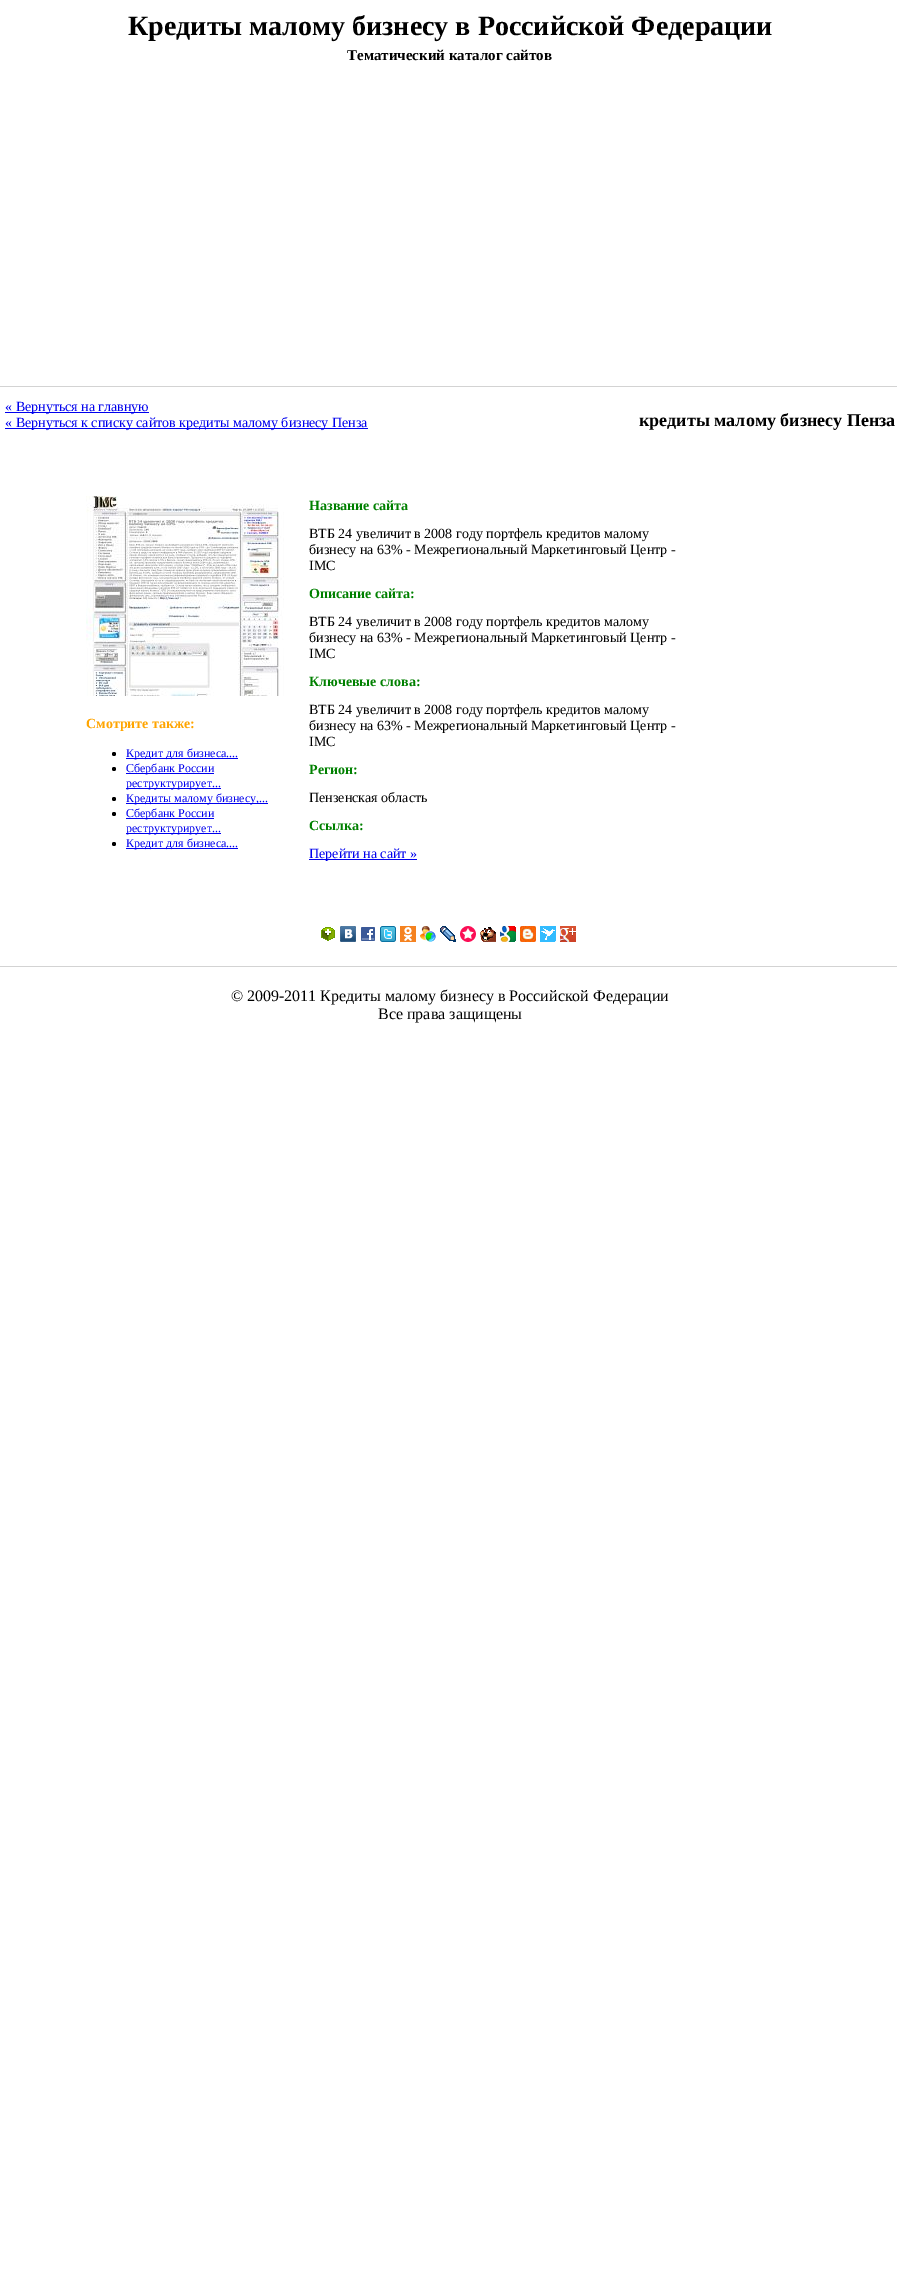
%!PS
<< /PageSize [897 2289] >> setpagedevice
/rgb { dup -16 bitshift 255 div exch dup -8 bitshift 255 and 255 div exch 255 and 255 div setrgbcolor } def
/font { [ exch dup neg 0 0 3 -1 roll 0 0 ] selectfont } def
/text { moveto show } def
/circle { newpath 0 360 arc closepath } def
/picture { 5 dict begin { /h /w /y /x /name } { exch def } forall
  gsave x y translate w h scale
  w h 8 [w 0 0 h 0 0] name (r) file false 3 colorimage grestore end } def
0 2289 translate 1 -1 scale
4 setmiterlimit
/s1 { /LiberationSerif-Bold 28 font 16#000000 rgb } def
/s2 { /LiberationSerif-Bold 15 font 16#000000 rgb } def
/s3 { /LiberationSerif-Regular 14 font 16#0000EE rgb } def
/s4 { /LiberationSerif-Bold 18 font 16#000000 rgb } def
/s5 { /LiberationSerif-Bold 14 font 16#FFA500 rgb } def
/s6 { /LiberationSerif-Regular 12 font 16#0000EE rgb } def
/s7 { /LiberationSerif-Bold 14 font 16#008000 rgb } def
/s8 { /LiberationSerif-Regular 14 font 16#000000 rgb } def
/s9 { /LiberationSerif-Regular 16 font 16#000000 rgb } def
16#FFFFFF rgb
0 0 897 2289 rectfill
16#D3D3D3 rgb
0 386 897 1 rectfill
s1
(Кредиты малому бизнесу в Российской Федерации) 128 35 text
s2
(Тематический каталог сайтов) 347 60 text
16#0000EE rgb
5 412 144 1 rectfill
s3
(« Вернуться на главную) 5 411 text
5 428 363 1 rectfill
(« Вернуться к списку сайтов кредиты малому бизнесу Пенза) 5 427 text
s4
(кредиты малому бизнесу Пенза) 639 426 text
(pic1.raw) 86 496 198 200 picture
s5
(Смотрите также:) 86 728 text
16#000000 rgb
114 754 2 circle fill
16#0000EE rgb
126 758 112 1 rectfill
s6
(Кредит для бизнеса....) 126 757 text
16#000000 rgb
114 769 2 circle fill
16#0000EE rgb
126 773 88 1 rectfill
(Сбербанк России) 126 772 text
126 788 95 1 rectfill
(реструктурирует...) 126 787 text
16#000000 rgb
114 799 2 circle fill
16#0000EE rgb
126 803 142 1 rectfill
(Кредиты малому бизнесу,...) 126 802 text
16#000000 rgb
114 814 2 circle fill
16#0000EE rgb
126 818 88 1 rectfill
(Сбербанк России) 126 817 text
126 833 95 1 rectfill
(реструктурирует...) 126 832 text
16#000000 rgb
114 844 2 circle fill
16#0000EE rgb
126 848 112 1 rectfill
(Кредит для бизнеса....) 126 847 text
s7
(Название сайта) 309 510 text
s8
(ВТБ 24 увеличит в 2008 году портфель кредитов малому) 309 538 text
(бизнесу на 63% - Межрегиональный Маркетинговый Центр -) 309 554 text
(IMC) 309 570 text
s7
(Описание сайта:) 309 598 text
s8
(ВТБ 24 увеличит в 2008 году портфель кредитов малому) 309 626 text
(бизнесу на 63% - Межрегиональный Маркетинговый Центр -) 309 642 text
(IMC) 309 658 text
s7
(Ключевые слова:) 309 686 text
s8
(ВТБ 24 увеличит в 2008 году портфель кредитов малому) 309 714 text
(бизнесу на 63% - Межрегиональный Маркетинговый Центр -) 309 730 text
(IMC) 309 746 text
s7
(Регион:) 309 774 text
s8
(Пензенская область) 309 802 text
s7
(Ссылка:) 309 830 text
16#0000EE rgb
309 859 108 1 rectfill
s3
(Перейти на сайт ») 309 858 text
(pic2.raw) 321 927 14 14 picture
(pic3.raw) 340 926 16 16 picture
(pic4.raw) 361 927 14 14 picture
(pic5.raw) 380 926 16 16 picture
(pic6.raw) 400 926 16 16 picture
(pic7.raw) 420 926 16 16 picture
(pic8.raw) 440 926 16 16 picture
(pic9.raw) 460 926 16 16 picture
(pic10.raw) 480 927 16 15 picture
(pic11.raw) 500 926 16 16 picture
(pic12.raw) 520 926 16 16 picture
(pic13.raw) 540 926 16 16 picture
(pic14.raw) 560 926 16 16 picture
16#D3D3D3 rgb
0 966 897 1 rectfill
s9
(© 2009-2011 Кредиты малому бизнесу в Российской Федерации) 231 1001 text
(Все права защищены) 378 1019 text
showpage
